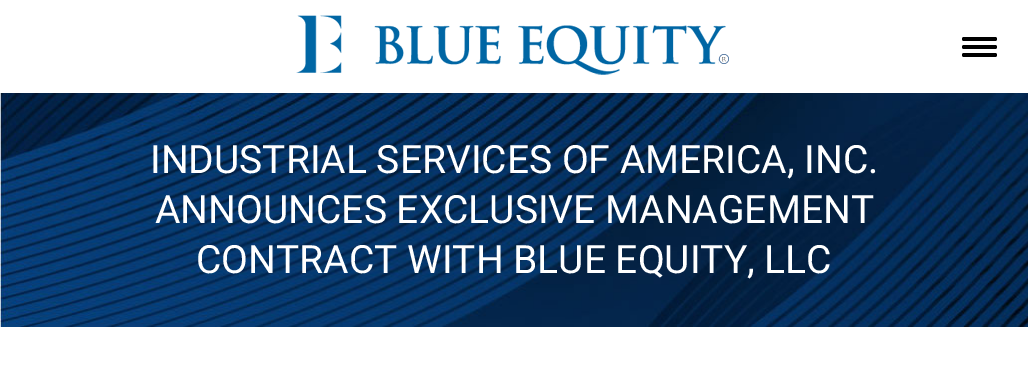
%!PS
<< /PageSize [1028 368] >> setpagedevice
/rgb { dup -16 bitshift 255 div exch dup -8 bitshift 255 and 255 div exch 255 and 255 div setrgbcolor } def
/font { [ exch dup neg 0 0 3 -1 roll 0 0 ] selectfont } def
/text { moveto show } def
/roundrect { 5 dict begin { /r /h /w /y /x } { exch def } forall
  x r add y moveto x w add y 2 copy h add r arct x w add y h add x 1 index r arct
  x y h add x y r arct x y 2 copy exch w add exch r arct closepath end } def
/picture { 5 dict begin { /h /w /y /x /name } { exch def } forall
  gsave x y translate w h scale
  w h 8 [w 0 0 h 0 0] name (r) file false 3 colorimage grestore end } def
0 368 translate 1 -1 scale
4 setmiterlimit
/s1 { /Roboto-Regular 39 font 16#FFFFFF rgb } def
16#FFFFFF rgb
0 0 1028 368 rectfill
(pic1.raw) 296 15 433 60 picture
16#000000 rgb
962 37 35 4 2 roundrect fill
962 45 35 4 2 roundrect fill
962 53 35 4 2 roundrect fill
(pic2.raw) 0 93 1028 234 picture
s1
(INDUSTRIAL SERVICES OF AMERICA, INC.) 150 173 text
(ANNOUNCES EXCLUSIVE MANAGEMENT) 155 223 text
(CONTRACT WITH BLUE EQUITY, LLC) 196 273 text
showpage
